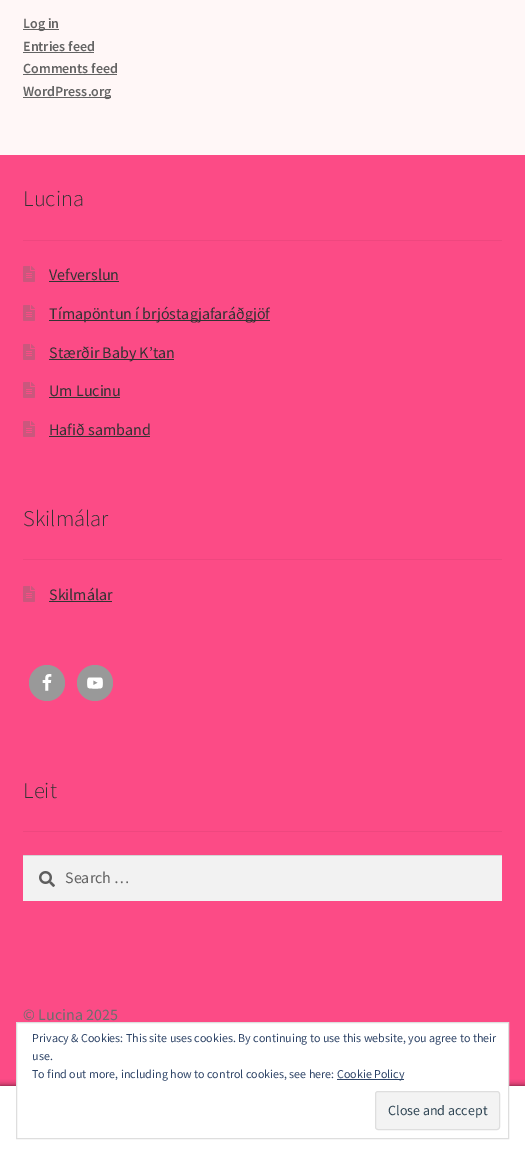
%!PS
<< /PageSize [525 1155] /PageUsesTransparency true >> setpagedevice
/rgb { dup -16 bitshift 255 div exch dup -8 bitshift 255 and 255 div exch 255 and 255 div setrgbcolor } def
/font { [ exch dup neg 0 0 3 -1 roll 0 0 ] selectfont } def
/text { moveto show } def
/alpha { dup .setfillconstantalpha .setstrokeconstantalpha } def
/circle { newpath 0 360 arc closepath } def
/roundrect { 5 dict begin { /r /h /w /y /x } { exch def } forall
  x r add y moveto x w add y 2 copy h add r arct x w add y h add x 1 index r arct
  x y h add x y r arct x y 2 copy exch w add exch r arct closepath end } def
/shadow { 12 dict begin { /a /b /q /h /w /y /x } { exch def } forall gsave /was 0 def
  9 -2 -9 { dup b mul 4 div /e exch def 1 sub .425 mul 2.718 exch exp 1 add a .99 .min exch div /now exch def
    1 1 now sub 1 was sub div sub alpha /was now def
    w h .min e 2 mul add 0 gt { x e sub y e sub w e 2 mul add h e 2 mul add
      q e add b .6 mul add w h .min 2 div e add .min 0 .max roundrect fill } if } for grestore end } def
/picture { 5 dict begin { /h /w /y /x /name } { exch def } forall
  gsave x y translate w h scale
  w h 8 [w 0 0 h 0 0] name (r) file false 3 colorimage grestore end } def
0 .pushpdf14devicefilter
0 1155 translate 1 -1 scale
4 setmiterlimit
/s1 { /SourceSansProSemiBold-SemiBold 14 font 16#636363 rgb } def
/s2 { /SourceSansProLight-Light 22.5 font 16#333333 rgb } def
/s3 { /SourceSansPro-Regular 16 font 16#333333 rgb } def
/s4 { /SourceSansPro-Regular 16 font 16#636363 rgb } def
/s5 { /SourceSansPro-Regular 16 font 16#6D6D6D rgb } def
/s6 { /SourceSansPro-Regular 12 font 16#2E4467 rgb } def
/s7 { /SourceSansPro-Regular 14 font 16#2E4453 rgb } def
16#FFF7F7 rgb
0 0 525 1155 rectfill
16#636363 rgb
23 29 36 1 rectfill
s1
(Log in) 23 28 text
(Entries feed) 23 51 text
23 52 71 1 rectfill
(Comments feed) 23 73 text
23 74 94 1 rectfill
23 97 88 1 rectfill
(WordPress.org) 23 96 text
16#FC4B86 rgb
0 155 525 931 rectfill
16#EF477F rgb
23 240 479 1 rectfill
s2
(Lucina) 23 206 text
(pic1.raw) 23 266 12 16 picture
s3
(Vefverslun) 49 280 text
49 281 70 1 rectfill
(pic1.raw) 23 305 12 16 picture
49 320 221 1 rectfill
(Tímapöntun í brjóstagjafaráðgjöf) 49 319 text
(pic1.raw) 23 344 12 16 picture
49 359 125 1 rectfill
(Stærðir Baby K’tan) 49 358 text
(pic1.raw) 23 382 12 16 picture
(Um Lucinu) 49 396 text
49 397 71 1 rectfill
(pic1.raw) 23 421 12 16 picture
(Hafið samband) 49 435 text
49 436 101 1 rectfill
16#EF477F rgb
23 559 479 1 rectfill
s2
(Skilmálar) 23 526 text
(pic1.raw) 23 586 12 16 picture
s3
(Skilmálar) 49 600 text
49 601 63 1 rectfill
16#999999 rgb
47 683 18 circle fill
(pic2.raw) 42 674 10 17 picture
95 683 18 circle fill
(pic3.raw) 87 677 16 12 picture
16#EF477F rgb
23 831 479 1 rectfill
s2
(Leit) 23 798 text
16#F2F2F2 rgb
23 856 479 45 rectfill
(pic4.raw) 39 871 16 16 picture
16#D4D4D4 rgb
23 855 479 1 rectfill
s4
(Search …) 65 883 text
s5
(© Lucina 2025) 23 1020 text
16#000000 rgb
0 1086 525 69 0 3 0.7 shadow
16#FFFFFF rgb
0 1086 525 1 rectfill
0 1087 525 68 rectfill
17 1023 491 63 rectfill
16#DEDEDE rgb
16.5 1022.5 492 116 rectstroke
s6
(Privacy & Cookies: This site uses cookies. By continuing to use this website, you agree to their) 32 1042 text
(use.) 32 1060 text
(To find out more, including how to control cookies, see here:) 32 1078 text
337 1079 67 1 rectfill
(Cookie Policy) 337 1078 text
16#F3F3F3 rgb
375.5 1091.5 124 38 2.5 roundrect gsave fill grestore
16#DEDEDE rgb
stroke
s7
(Close and accept) 388 1115 text
.poppdf14devicefilter showpage
